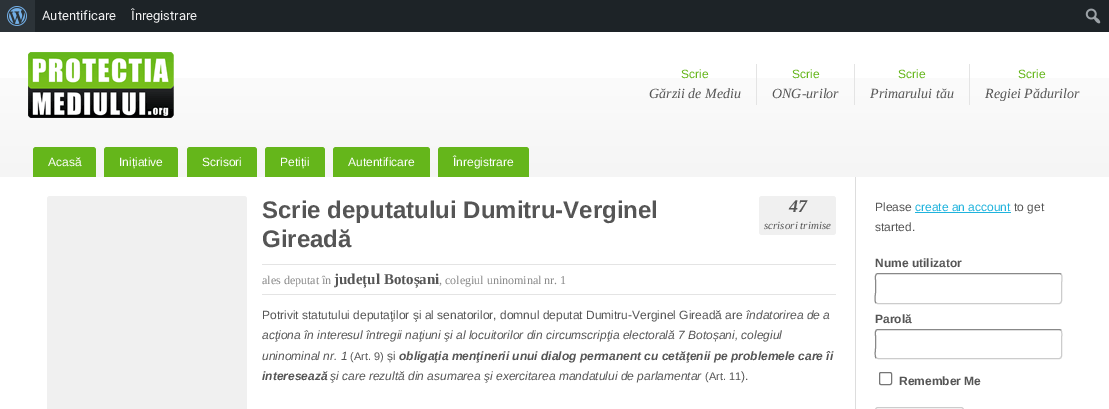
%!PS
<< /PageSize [1109 409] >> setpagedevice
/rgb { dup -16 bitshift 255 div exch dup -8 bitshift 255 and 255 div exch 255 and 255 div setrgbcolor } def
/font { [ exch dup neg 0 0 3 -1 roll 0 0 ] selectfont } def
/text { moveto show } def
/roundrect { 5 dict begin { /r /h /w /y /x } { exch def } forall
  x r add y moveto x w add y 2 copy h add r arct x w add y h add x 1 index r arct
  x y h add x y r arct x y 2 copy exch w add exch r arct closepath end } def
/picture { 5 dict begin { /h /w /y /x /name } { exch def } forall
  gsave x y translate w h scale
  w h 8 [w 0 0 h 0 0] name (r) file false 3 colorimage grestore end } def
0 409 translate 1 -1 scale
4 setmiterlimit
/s1 { /Roboto-Regular 13 font 16#F0F0F1 rgb } def
/s2 { /LiberationSans-Regular 12 font 16#65B61B rgb } def
/s3 { /LiberationSerif-Italic 14 font 16#555555 rgb } def
/s4 { /LiberationSans-Regular 12 font 16#FFFFFF rgb } def
/s5 { /LiberationSans-Bold 24 font 16#555555 rgb } def
/s6 { /LiberationSerif-BoldItalic 18 font 16#555555 rgb } def
/s7 { /LiberationSerif-Italic 11 font 16#555555 rgb } def
/s8 { /LiberationSerif-Regular 12 font 16#888888 rgb } def
/s9 { /LiberationSerif-Bold 15 font 16#555555 rgb } def
/s10 { /LiberationSans-Regular 12 font 16#555555 rgb } def
/s11 { /LiberationSans-Italic 12 font 16#555555 rgb } def
/s12 { /LiberationSans-Regular 11 font 16#555555 rgb } def
/s13 { /LiberationSans-BoldItalic 12 font 16#555555 rgb } def
/s14 { /LiberationSans-Regular 12 font 16#1FB3DD rgb } def
/s15 { /LiberationSans-Bold 12 font 16#555555 rgb } def
16#FFFFFF rgb
0 0 1109 409 rectfill
16#1D2327 rgb
35 0 1074 32 rectfill
16#2C3338 rgb
0 0 35 32 rectfill
(pic1.raw) 7 6 20 20 picture
s1
(Autentificare) 42 20 text
(Înregistrare) 131 20 text
(pic2.raw) 1085 8 16 16 picture
(pic3.raw) 0 78 1109 99 picture
(pic4.raw) 28 52 146 66 picture
16#E4E4E4 rgb
756 64 1 41 rectfill
s2
(Scrie) 681 78 text
s3
(Gărzii de Mediu) 649 98 text
16#E4E4E4 rgb
854 64 1 41 rectfill
s2
(Scrie) 792 78 text
s3
(ONG-urilor) 772 98 text
16#E4E4E4 rgb
969 64 1 41 rectfill
s2
(Scrie) 898 78 text
s3
(Primarului tău) 870 98 text
s2
(Scrie) 1018 78 text
s3
(Regiei Pădurilor) 985 98 text
16#65B61B rgb
36 147 moveto 93 147 lineto 94.5 147 96 148.5 96 150 curveto 96 177 lineto 33 177 lineto 33 150 lineto 33 148.5 34.5 147 36 147 curveto closepath fill
s4
(Acasă) 48 166 text
16#65B61B rgb
107 147 moveto 175 147 lineto 176.5 147 178 148.5 178 150 curveto 178 177 lineto 104 177 lineto 104 150 lineto 104 148.5 105.5 147 107 147 curveto closepath fill
s4
(Inițiative) 119 166 text
16#65B61B rgb
190 147 moveto 254 147 lineto 255.5 147 257 148.5 257 150 curveto 257 177 lineto 187 177 lineto 187 150 lineto 187 148.5 188.5 147 190 147 curveto closepath fill
s4
(Scrisori) 202 166 text
16#65B61B rgb
268 147 moveto 322 147 lineto 323.5 147 325 148.5 325 150 curveto 325 177 lineto 265 177 lineto 265 150 lineto 265 148.5 266.5 147 268 147 curveto closepath fill
s4
(Petiții) 280 166 text
16#65B61B rgb
336 147 moveto 427 147 lineto 428.5 147 430 148.5 430 150 curveto 430 177 lineto 333 177 lineto 333 150 lineto 333 148.5 334.5 147 336 147 curveto closepath fill
s4
(Autentificare) 348 166 text
16#65B61B rgb
441 147 moveto 526 147 lineto 527.5 147 529 148.5 529 150 curveto 529 177 lineto 438 177 lineto 438 150 lineto 438 148.5 439.5 147 441 147 curveto closepath fill
s4
(Înregistrare) 453 166 text
16#DDDDDD rgb
855 177 1 232 rectfill
16#F0F0F0 rgb
47 196 200 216 3 roundrect fill
s5
(Scrie deputatului Dumitru-Verginel) 262 218 text
(Gireadă) 262 247 text
16#F0F0F0 rgb
759 196 77 39 3 roundrect fill
s6
(47) 789 212 text
s7
(scrisori trimise) 764 229 text
16#E4E4E4 rgb
262 264 574 1 rectfill
262 294 574 1 rectfill
s8
(ales deputat în) 262 284 text
s9
(județul Botoșani) 334 284 text
s8
(, colegiul uninominal nr. 1) 439 284 text
s10
(Potrivit statutului deputaţilor şi al senatorilor, domnul deputat Dumitru-Verginel Gireadă are) 262 319 text
s11
(îndatorirea de a) 746 319 text
(acţiona în interesul întregii naţiuni şi al locuitorilor din circumscripţia electorală 7 Botoșani, colegiul) 262 339 text
(uninominal nr. 1) 262 360 text
s12
(\(Art. 9\)) 350 360 text
s10
(și) 387 360 text
s13
(obligaţia menţinerii unui dialog permanent cu cetăţenii pe problemele care îi) 399 360 text
(interesează) 262 380 text
s11
(şi care rezultă din asumarea şi exercitarea mandatului de parlamentar) 330 380 text
s12
(\(Art. 11) 705 380 text
s10
(\).) 741 380 text
(Please) 875 211 text
s14
(create an account) 915 211 text
915 212 96 1 rectfill
s10
(to get) 1014 211 text
(started.) 875 231 text
s15
(Nume utilizator) 875 267 text
16#CCCCCC rgb
1061 274 moveto 1063 276 1061.5 282 1061.5 284.5 curveto 1061.5 297 lineto 1061.5 298.5 1062.5 303.5 1059 303.5 curveto 877.5 303.5 lineto 876 303 lineto stroke
16#888888 rgb
876 303 moveto 874 301 875.5 295 875.5 292.5 curveto 875.5 280 lineto 875.5 278.5 874.5 273.5 878 273.5 curveto 1059.5 273.5 lineto 1061 274 lineto stroke
s15
(Parolă) 875 323 text
16#CCCCCC rgb
1061 330 moveto 1062.5 332 1061.5 338 1061.5 340 curveto 1061.5 352 lineto 1061.5 354 1062.5 358.5 1059 358.5 curveto 878 358.5 lineto 876 358 lineto stroke
16#888888 rgb
876 358 moveto 874.5 356 875.5 350 875.5 348 curveto 875.5 336 lineto 875.5 334 874.5 329.5 878 329.5 curveto 1059 329.5 lineto 1061 330 lineto stroke
16#767676 rgb
879.5 372.5 12 12 1.5 roundrect stroke
s15
(Remember Me) 899 385 text
16#CCCCCC rgb
875.5 407.5 88 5 2.5 roundrect stroke
showpage
